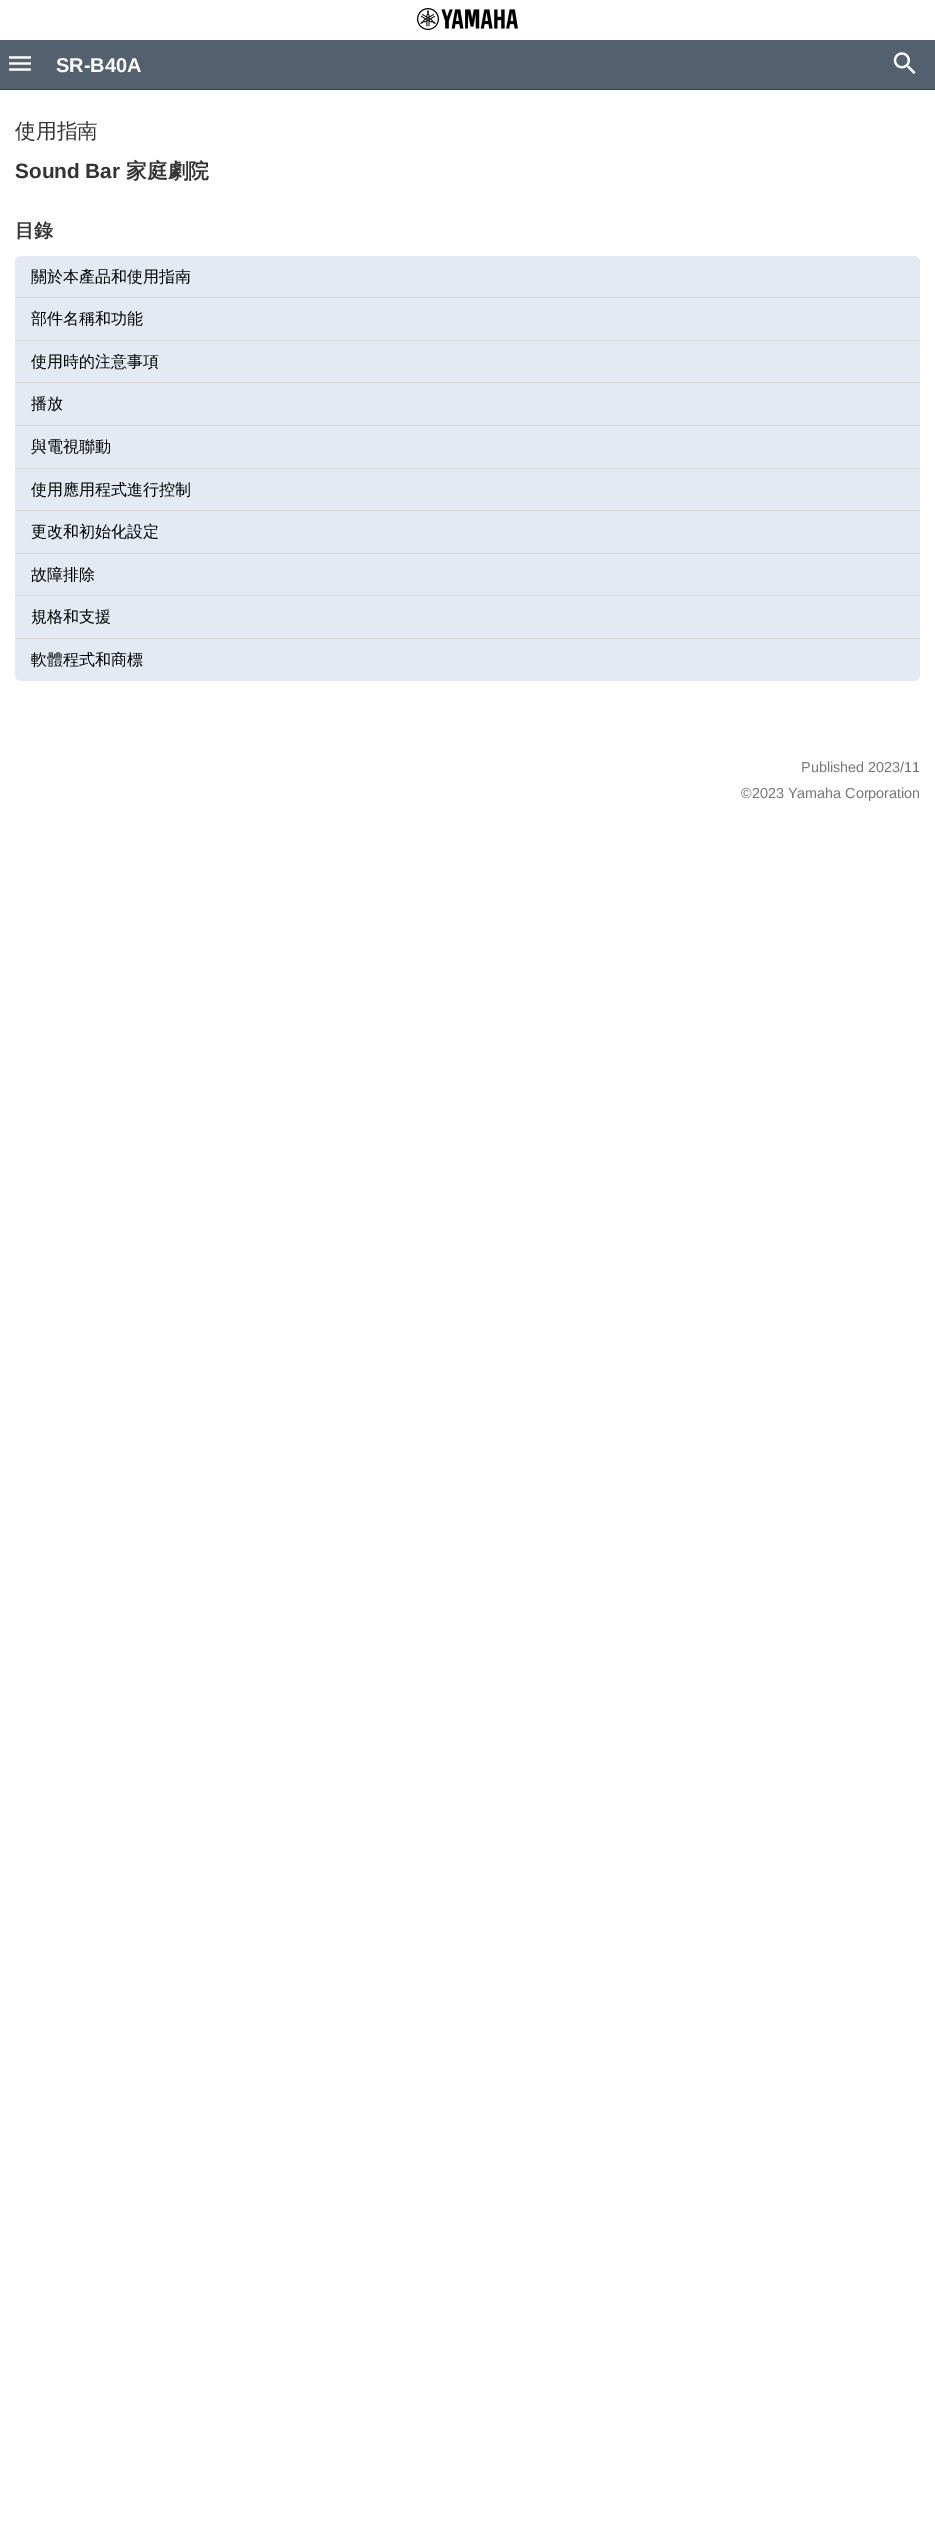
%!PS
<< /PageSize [935 2536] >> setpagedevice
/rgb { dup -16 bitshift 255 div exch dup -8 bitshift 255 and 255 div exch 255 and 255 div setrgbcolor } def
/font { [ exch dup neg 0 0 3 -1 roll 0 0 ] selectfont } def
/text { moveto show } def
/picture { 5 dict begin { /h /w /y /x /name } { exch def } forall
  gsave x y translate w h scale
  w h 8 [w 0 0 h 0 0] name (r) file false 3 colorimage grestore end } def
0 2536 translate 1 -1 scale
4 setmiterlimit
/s1 { /LiberationSans-Bold 20 font 16#FFFFFF rgb } def
/s2 { /WenQuanYiZenHei-Medium 20.75 font 16#333333 rgb } def
/s3 { /LiberationSans-Bold 20.75 font 16#333333 rgb } def
/s4 { /WenQuanYiZenHei-Bold 20.75 font 16#333333 rgb } def
/s5 { /WenQuanYiZenHei-Bold 19 font 16#333333 rgb } def
/s6 { /WenQuanYiZenHei-Medium 16 font 16#000000 rgb } def
/s7 { /LiberationSans-Regular 14.4 font 16#777777 rgb } def
16#FFFFFF rgb
0 0 935 2536 rectfill
(pic1.raw) 417 8 101 22 picture
16#53606D rgb
0 40 935 49 rectfill
16#3A4651 rgb
0 89 935 1 rectfill
(pic2.raw) 9 56 22 15 picture
s1
(SR-B40A) 56 72 text
(pic3.raw) 893 52 23 22 picture
s2
(使用指南) 15 138 text
s3
(Sound Bar) 15 178 text
s4
(家庭劇院) 126 178 text
s5
(目錄) 15 237 text
16#E4EAF3 rgb
21 256 moveto 914 256 lineto 917.5 256 920 258.5 920 262 curveto 920 298 lineto 15 298 lineto 15 262 lineto 15 258.5 17.5 256 21 256 curveto closepath fill
16#D9D9D9 rgb
15 297 905 1 rectfill
s6
(關於本產品和使用指南) 31 282 text
16#E4EAF3 rgb
15 298 905 42 rectfill
16#D9D9D9 rgb
15 340 905 1 rectfill
s6
(部件名稱和功能) 31 324 text
16#E4EAF3 rgb
15 341 905 41 rectfill
16#D9D9D9 rgb
15 382 905 1 rectfill
s6
(使用時的注意事項) 31 367 text
16#E4EAF3 rgb
15 383 905 42 rectfill
16#D9D9D9 rgb
15 425 905 1 rectfill
s6
(播放) 31 409 text
16#E4EAF3 rgb
15 426 905 42 rectfill
16#D9D9D9 rgb
15 468 905 1 rectfill
s6
(與電視聯動) 31 452 text
16#E4EAF3 rgb
15 469 905 41 rectfill
16#D9D9D9 rgb
15 510 905 1 rectfill
s6
(使用應用程式進行控制) 31 495 text
16#E4EAF3 rgb
15 511 905 42 rectfill
16#D9D9D9 rgb
15 553 905 1 rectfill
s6
(更改和初始化設定) 31 537 text
16#E4EAF3 rgb
15 554 905 41 rectfill
16#D9D9D9 rgb
15 595 905 1 rectfill
s6
(故障排除) 31 580 text
16#E4EAF3 rgb
15 596 905 42 rectfill
16#D9D9D9 rgb
15 638 905 1 rectfill
s6
(規格和支援) 31 622 text
16#E4EAF3 rgb
15 639 moveto 920 639 lineto 920 675 lineto 920 678.5 917.5 681 914 681 curveto 21 681 lineto 17.5 681 15 678.5 15 675 curveto closepath fill
s6
(軟體程式和商標) 31 665 text
s7
(Published 2023/11) 801 772 text
(©2023 Yamaha Corporation) 741 798 text
showpage
